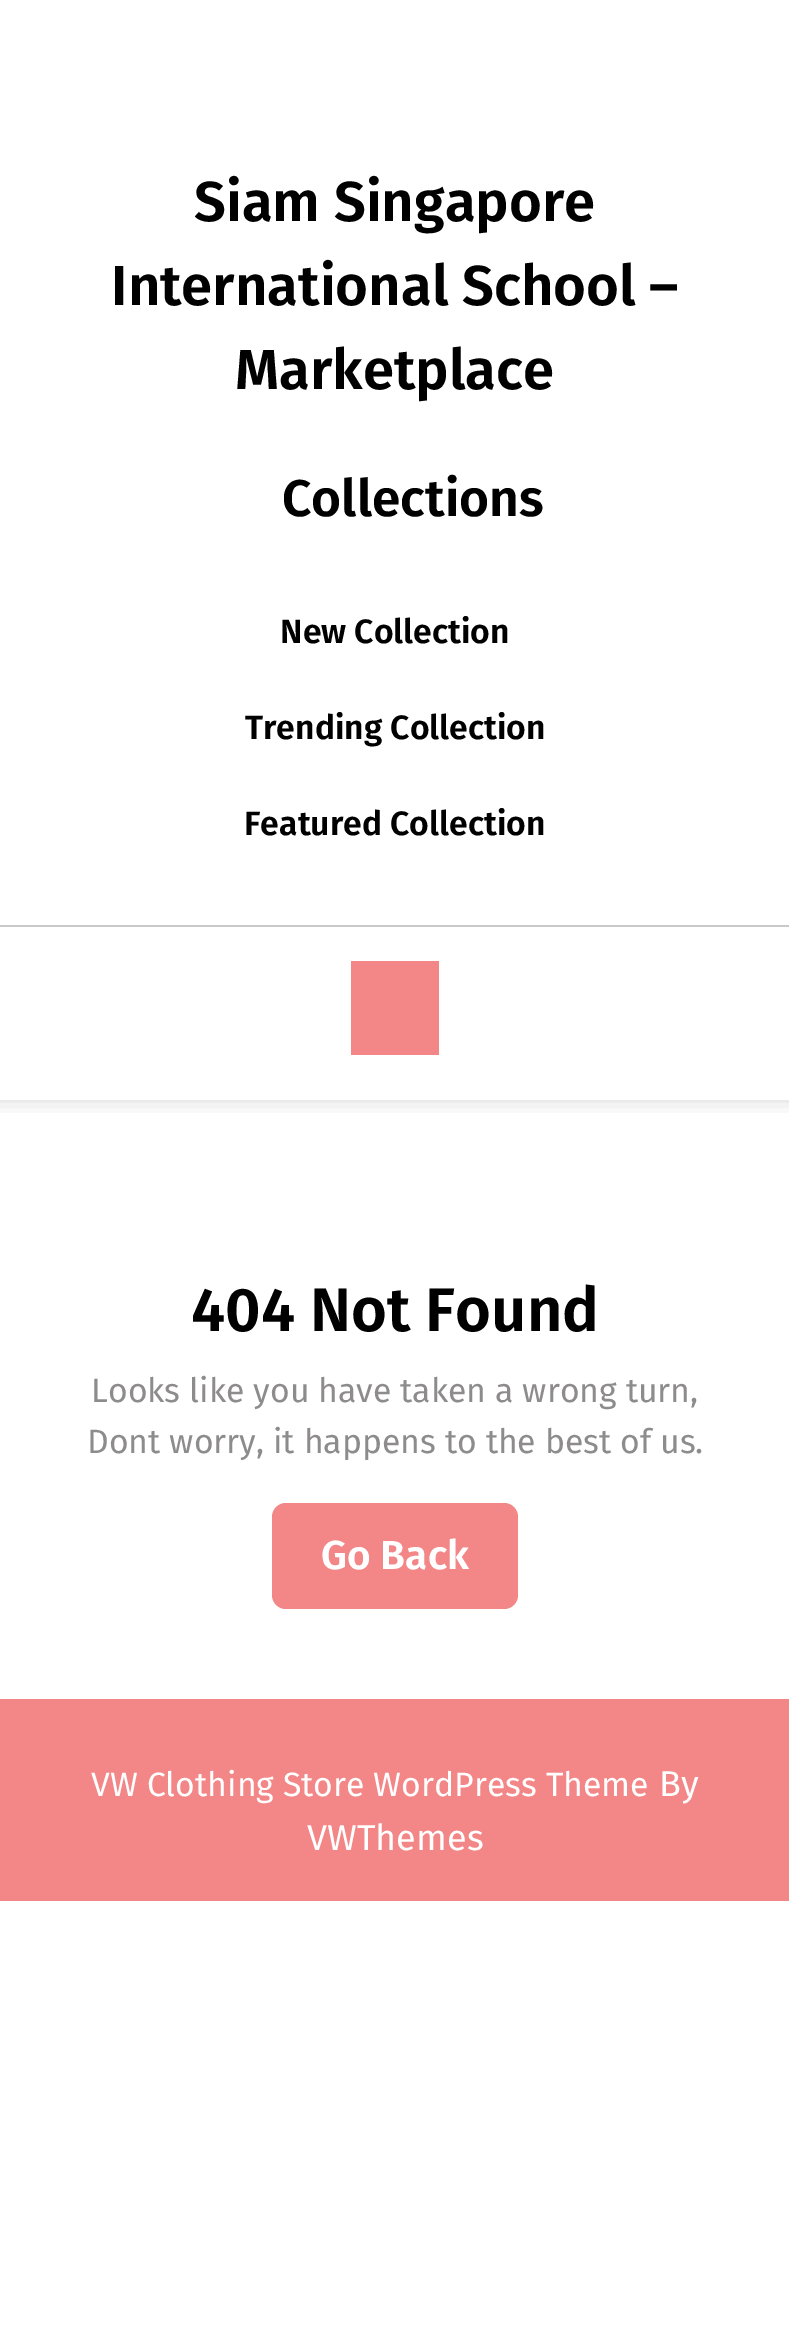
%!PS
<< /PageSize [789 2349] /PageUsesTransparency true >> setpagedevice
/rgb { dup -16 bitshift 255 div exch dup -8 bitshift 255 and 255 div exch 255 and 255 div setrgbcolor } def
/font { [ exch dup neg 0 0 3 -1 roll 0 0 ] selectfont } def
/text { moveto show } def
/alpha { dup .setfillconstantalpha .setstrokeconstantalpha } def
/roundrect { 5 dict begin { /r /h /w /y /x } { exch def } forall
  x r add y moveto x w add y 2 copy h add r arct x w add y h add x 1 index r arct
  x y h add x y r arct x y 2 copy exch w add exch r arct closepath end } def
/shadow { 12 dict begin { /a /b /q /h /w /y /x } { exch def } forall gsave /was 0 def
  9 -2 -9 { dup b mul 4 div /e exch def 1 sub .425 mul 2.718 exch exp 1 add a .99 .min exch div /now exch def
    1 1 now sub 1 was sub div sub alpha /was now def
    w h .min e 2 mul add 0 gt { x e sub y e sub w e 2 mul add h e 2 mul add
      q e add b .6 mul add w h .min 2 div e add .min 0 .max roundrect fill } if } for grestore end } def
0 .pushpdf14devicefilter
0 2349 translate 1 -1 scale
4 setmiterlimit
/s1 { /FiraSans-SemiBold 56.25 font 16#000000 rgb } def
/s2 { /FiraSans-SemiBold 51.5 font 16#000000 rgb } def
/s3 { /FiraSans-SemiBold 33.75 font 16#000000 rgb } def
/s4 { /FiraSans-SemiBold 61.5 font 16#000000 rgb } def
/s5 { /FiraSans-Regular 33.75 font 16#8D8B8B rgb } def
/s6 { /FiraSans-SemiBold 40.5 font 16#FFFFFF rgb } def
/s7 { /FiraSans-Regular 33.75 font 16#FFFFFF rgb } def
/s8 { /FiraSans-Regular 36 font 16#FFFFFF rgb } def
16#FFFFFF rgb
0 0 789 2349 rectfill
gsave
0 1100 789 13 rectclip
16#000000 rgb
-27 0 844 1100 0 11 0.16 shadow
grestore
s1
(Siam Singapore) 194 221 text
(International School –) 111 305 text
(Marketplace) 235 389 text
s2
(Collections) 282 516 text
s3
(New Collection) 280 643 text
(Trending Collection) 245 739 text
(Featured Collection) 244 835 text
16#C8C9CA rgb
0 925 789 2 rectfill
16#F38686 rgb
351 961 88 94 rectfill
s4
(404 Not Found) 191 1331 text
s5
(Looks like you have taken a wrong turn,) 91 1402 text
(Dont worry, it happens to the best of us.) 87 1453 text
16#F38686 rgb
272 1503 246 106 14 roundrect fill
s6
(Go Back) 321 1569 text
16#F38686 rgb
0 1699 789 202 rectfill
s7
(VW Clothing Store WordPress Theme) 91 1796 text
s8
(By) 659 1796 text
(VWThemes) 307 1850 text
.poppdf14devicefilter showpage
